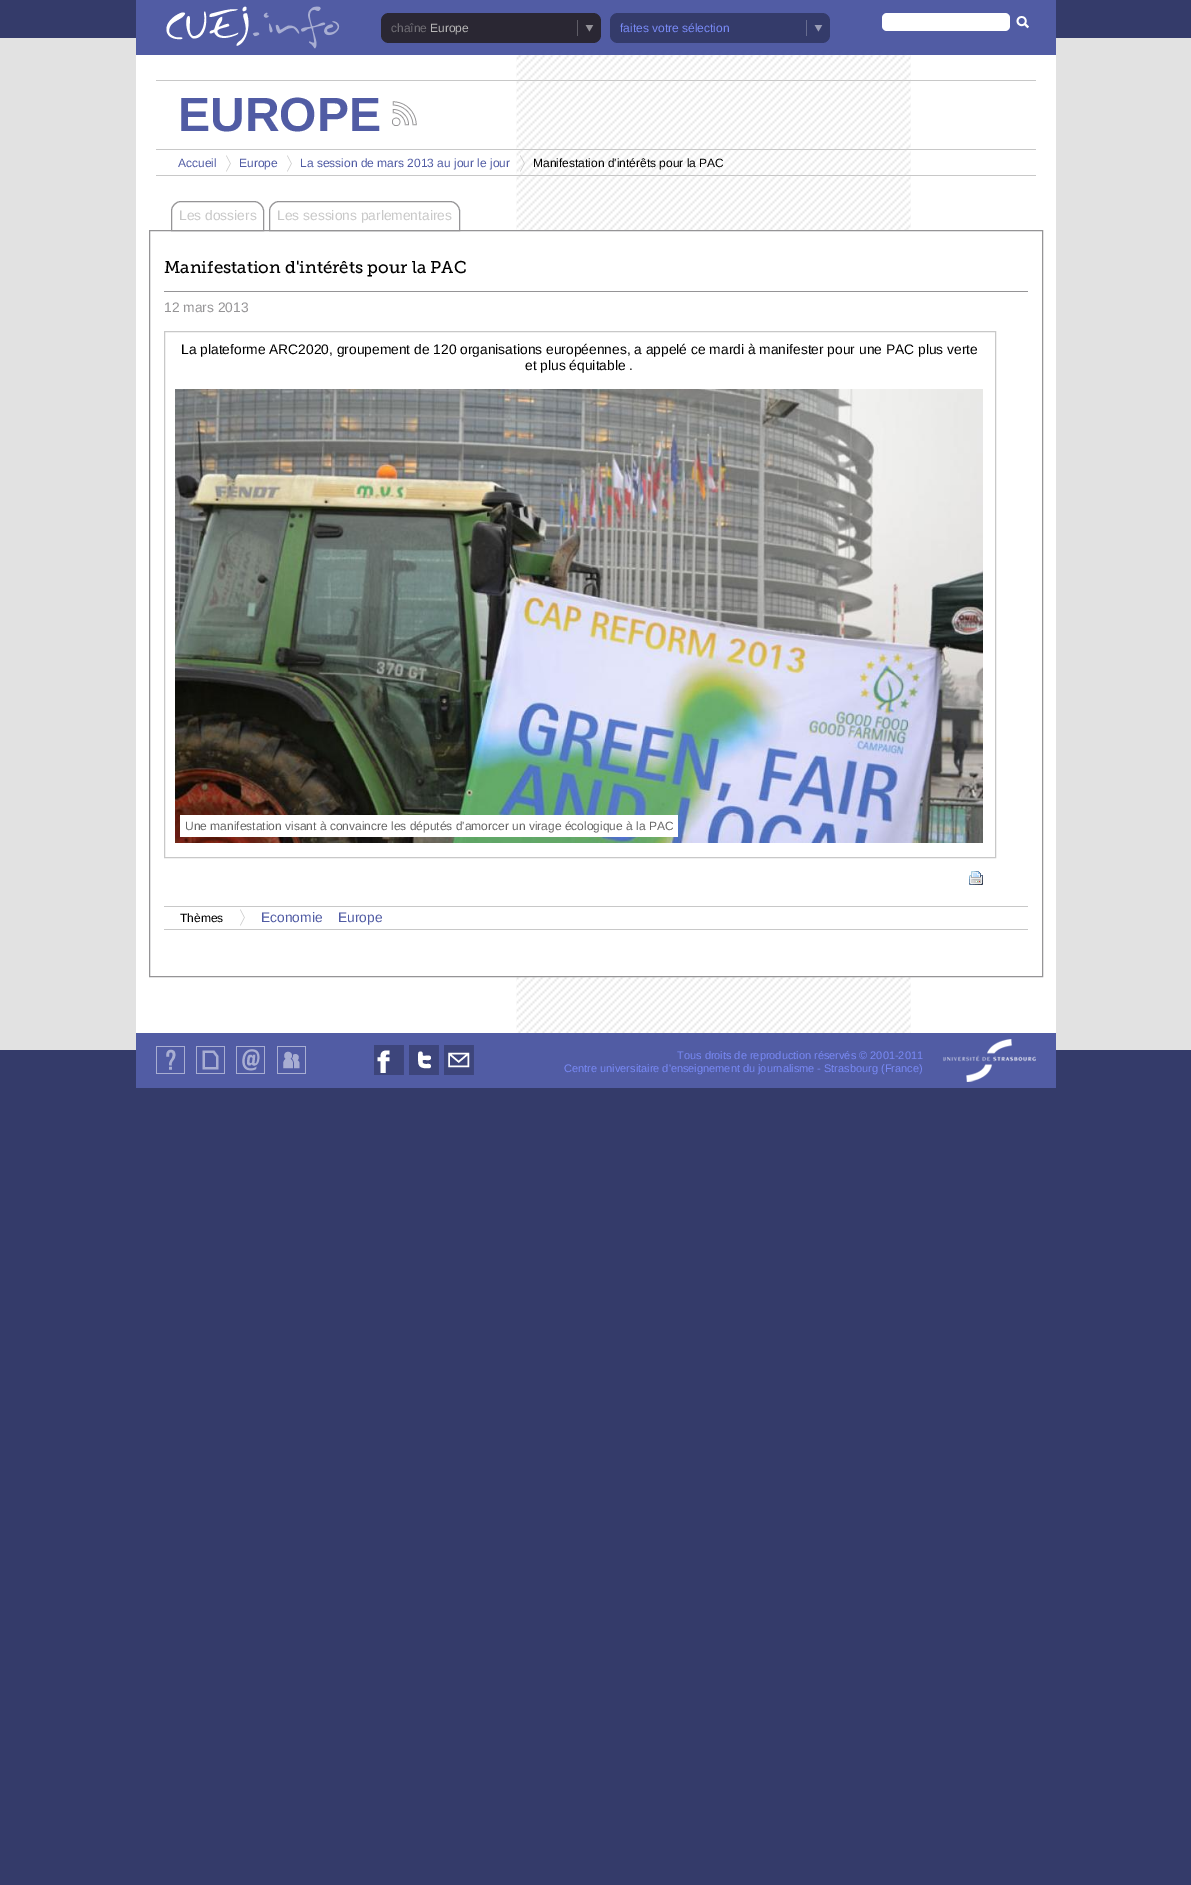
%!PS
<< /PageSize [1191 1885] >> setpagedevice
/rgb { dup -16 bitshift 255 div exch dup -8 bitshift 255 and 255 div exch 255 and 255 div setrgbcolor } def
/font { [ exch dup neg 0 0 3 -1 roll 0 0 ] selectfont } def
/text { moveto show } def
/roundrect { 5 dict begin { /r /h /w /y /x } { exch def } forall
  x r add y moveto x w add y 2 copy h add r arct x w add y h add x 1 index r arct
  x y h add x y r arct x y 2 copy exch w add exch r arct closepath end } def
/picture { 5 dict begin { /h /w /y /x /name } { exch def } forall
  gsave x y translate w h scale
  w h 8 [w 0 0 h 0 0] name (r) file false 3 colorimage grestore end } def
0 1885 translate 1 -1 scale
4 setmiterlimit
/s1 { /LiberationSans-Regular 12 font 16#716F75 rgb } def
/s2 { /LiberationSans-Regular 12 font 16#B7B6B6 rgb } def
/s3 { /LiberationSans-Regular 12 font 16#798AF6 rgb } def
/s4 { /LiberationSans-Bold 48 font 16#515CA4 rgb } def
/s5 { /LiberationSans-Regular 12 font 16#515CA4 rgb } def
/s6 { /LiberationSans-Regular 12 font 16#000000 rgb } def
/s7 { /LiberationSans-Regular 13.8 font 16#C8C8C8 rgb } def
/s8 { /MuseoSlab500-Regular 17 font 16#000000 rgb } def
/s9 { /LiberationSans-Regular 13.8 font 16#959496 rgb } def
/s10 { /LiberationSans-Regular 13.8 font 16#000000 rgb } def
/s11 { /LiberationSans-Regular 12 font 16#666666 rgb } def
/s12 { /LiberationSans-Regular 13.8 font 16#515CA4 rgb } def
/s13 { /LiberationSans-Regular 11 font 16#798AF6 rgb } def
16#343B6A rgb
0 0 1191 1885 rectfill
16#E2E2E2 rgb
0 38 1191 1012 rectfill
16#515CA4 rgb
136 0 920 55 rectfill
(pic1.raw) 166 6 174 43 picture
16#2A2733 rgb
381 13 220 30 8 roundrect fill
(pic2.raw) 577 20 17 16 picture
s1
(chaîne) 391 32 text
s2
(Europe) 430 32 text
16#343B6A rgb
610 13 220 30 8 roundrect fill
(pic3.raw) 806 20 17 16 picture
s3
(faites votre sélection) 620 32 text
16#FFFFFF rgb
882 13 128 18 5 roundrect fill
(pic4.raw) 1016 16 13 13 picture
136 55 920 978 rectfill
(pic5.raw) 516 55 395 978 picture
16#C8C8C8 rgb
156 80 880 1 rectfill
156 149 880 1 rectfill
s4
(EUROPE) 178 131 text
(pic6.raw) 392 101 25 25 picture
16#C8C8C8 rgb
156 175 880 1 rectfill
s5
(Accueil) 178 167 text
(pic7.raw) 226 155 5 17 picture
(Europe) 239 167 text
(pic7.raw) 287 155 5 17 picture
(La session de mars 2013 au jour le jour) 300 167 text
(pic8.raw) 520 155 5 17 picture
s6
(Manifestation d'intérêts pour la PAC) 533 167 text
16#FFFFFF rgb
516 231 395 745 rectfill
16#959496 rgb
149.5 230.5 893 746 rectstroke
181 201.5 moveto 254 201.5 lineto 259 201.5 263.5 206 263.5 211 curveto 263.5 230.5 lineto 171.5 230.5 lineto 171.5 211 lineto 171.5 206 176 201.5 181 201.5 curveto closepath stroke
s7
(Les dossiers) 179 220 text
16#959496 rgb
279 201.5 moveto 450 201.5 lineto 455 201.5 459.5 206 459.5 211 curveto 459.5 230.5 lineto 269.5 230.5 lineto 269.5 211 lineto 269.5 206 274 201.5 279 201.5 curveto closepath stroke
s7
(Les sessions parlementaires) 277 220 text
s8
(Manifestation d'intérêts pour la PAC) 164 273 text
16#959496 rgb
164 291 864 1 rectfill
s9
(12 mars 2013) 164 312 text
16#C8C8C8 rgb
164.5 331.5 831 526 rectstroke
s10
(La plateforme ARC2020, groupement de 120 organisations européennes, a appelé ce mardi à manifester pour une PAC plus verte) 181 354 text
(et plus équitable .) 525 370 text
(pic9.raw) 175 389 808 454 picture
16#FFFFFF rgb
180 815 498 22 rectfill
s11
(Une manifestation visant à convaincre les députés d'amorcer un virage écologique à la PAC) 185 830 text
(pic10.raw) 969 871 14 14 picture
16#C8C8C8 rgb
164 906 864 1 rectfill
164 929 864 1 rectfill
(pic7.raw) 240 909 5 17 picture
s6
(Thèmes) 180 922 text
s12
(Economie) 261 922 text
(Europe) 338 922 text
136 1033 920 55 rectfill
(pic11.raw) 156 1046 29 28 picture
(pic12.raw) 196 1046 29 28 picture
(pic13.raw) 236 1046 29 28 picture
(pic14.raw) 277 1046 29 28 picture
(pic15.raw) 374 1045 30 30 picture
(pic16.raw) 409 1045 30 30 picture
(pic17.raw) 444 1045 30 30 picture
s13
(Tous droits de reproduction réservés © 2001-2011) 677 1059 text
(Centre universitaire d'enseignement du journalisme - Strasbourg \(France\)) 564 1072 text
(pic18.raw) 943 1039 93 43 picture
showpage
